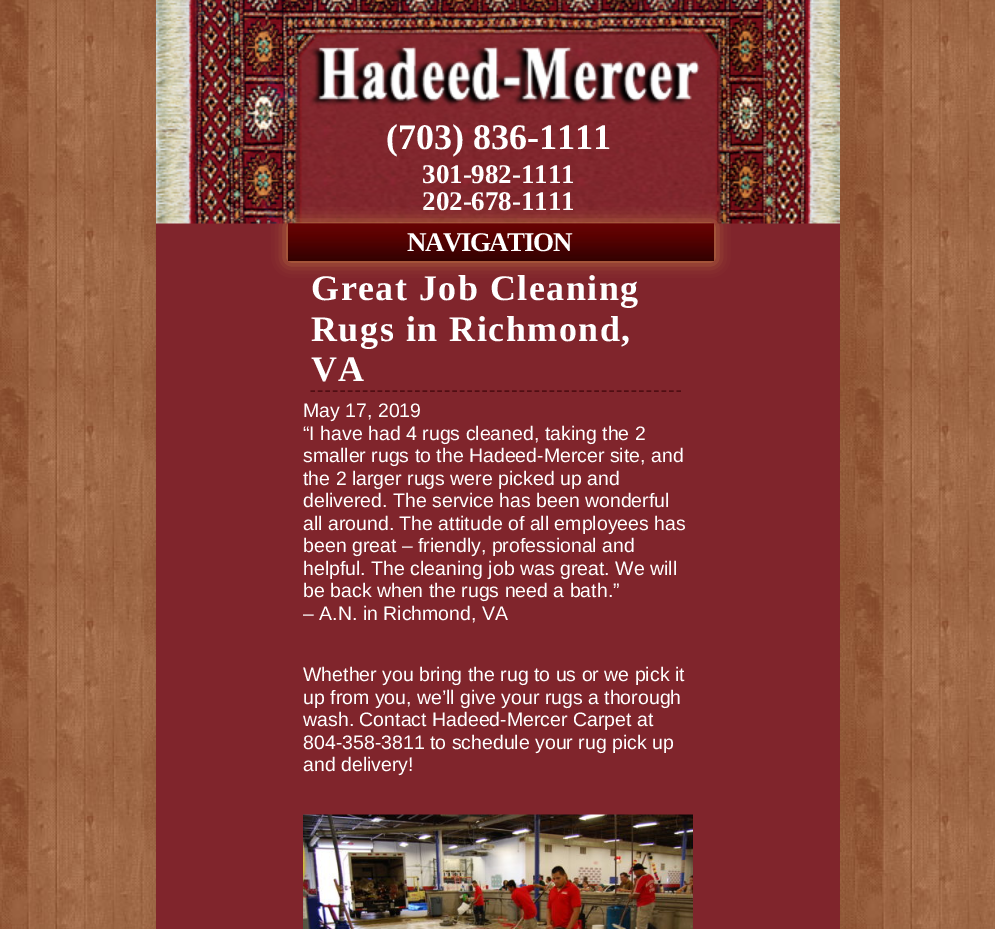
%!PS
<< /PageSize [995 929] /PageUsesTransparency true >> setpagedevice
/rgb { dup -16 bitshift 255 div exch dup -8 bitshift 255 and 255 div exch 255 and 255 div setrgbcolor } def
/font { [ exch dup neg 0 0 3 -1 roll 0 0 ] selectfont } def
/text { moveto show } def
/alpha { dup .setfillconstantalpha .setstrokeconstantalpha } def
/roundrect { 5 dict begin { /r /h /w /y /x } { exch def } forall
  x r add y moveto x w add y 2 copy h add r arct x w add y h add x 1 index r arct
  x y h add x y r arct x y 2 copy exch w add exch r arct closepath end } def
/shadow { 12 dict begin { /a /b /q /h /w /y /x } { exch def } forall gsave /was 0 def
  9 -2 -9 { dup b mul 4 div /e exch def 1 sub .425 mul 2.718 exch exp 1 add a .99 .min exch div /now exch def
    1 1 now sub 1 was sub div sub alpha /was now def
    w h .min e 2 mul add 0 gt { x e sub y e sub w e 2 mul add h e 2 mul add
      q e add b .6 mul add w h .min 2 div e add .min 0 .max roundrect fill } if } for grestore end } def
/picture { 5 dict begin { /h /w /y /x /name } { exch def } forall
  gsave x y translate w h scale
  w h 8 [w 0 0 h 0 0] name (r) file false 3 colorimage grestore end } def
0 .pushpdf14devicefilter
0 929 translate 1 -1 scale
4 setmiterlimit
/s1 { /LiberationSerif-Bold 36 font 16#FFFFFF rgb } def
/s2 { /LiberationSerif-Bold 27 font 16#FFFFFF rgb } def
/s3 { /LiberationSans-Regular 19.5 font 16#FFFFFF rgb } def
16#FFFFFF rgb
0 0 995 929 rectfill
(pic1.raw) 0 0 995 929 picture
16#80252C rgb
156 223 684 706 rectfill
(pic2.raw) 156 0 684 224 picture
s1
(\(703\) 836-1111) 386 149 text
s2
(301-982-1111) 422 183 text
(202-678-1111) 422 210 text
16#C98446 rgb
288 224 426 37 0 7.5 1 shadow
(pic3.raw) 288 223 426 38 picture
16#FFFFFF rgb
407 251 moveto -1.5 0 (NAVIGATION) ashow
16#500E13 rgb
1.5 setlinewidth
[4.5 2.97] 0 setdash
310.5 391 moveto 681 391 lineto stroke
/LiberationSerif-Bold 36 font
16#FFFFFF rgb
311 300 moveto 1.5 0 (Great Job Cleaning) ashow
311 341 moveto 1.5 0 (Rugs in Richmond,) ashow
311 381 moveto 1.5 0 (VA) ashow
s3
(May 17, 2019) 303 417 text
(“I have had 4 rugs cleaned, taking the 2) 303 440 text
(smaller rugs to the Hadeed-Mercer site, and) 303 462 text
(the 2 larger rugs were picked up and) 303 485 text
(delivered. The service has been wonderful) 303 507 text
(all around. The attitude of all employees has) 303 530 text
(been great – friendly, professional and) 303 552 text
(helpful. The cleaning job was great. We will) 303 575 text
(be back when the rugs need a bath.”) 303 597 text
(– A.N. in Richmond, VA) 303 620 text
(Whether you bring the rug to us or we pick it) 303 681 text
(up from you, we’ll give your rugs a thorough) 303 704 text
(wash. Contact Hadeed-Mercer Carpet at) 303 726 text
(804-358-3811 to schedule your rug pick up) 303 749 text
(and delivery!) 303 771 text
(pic4.raw) 303 814 390 115 picture
.poppdf14devicefilter showpage
